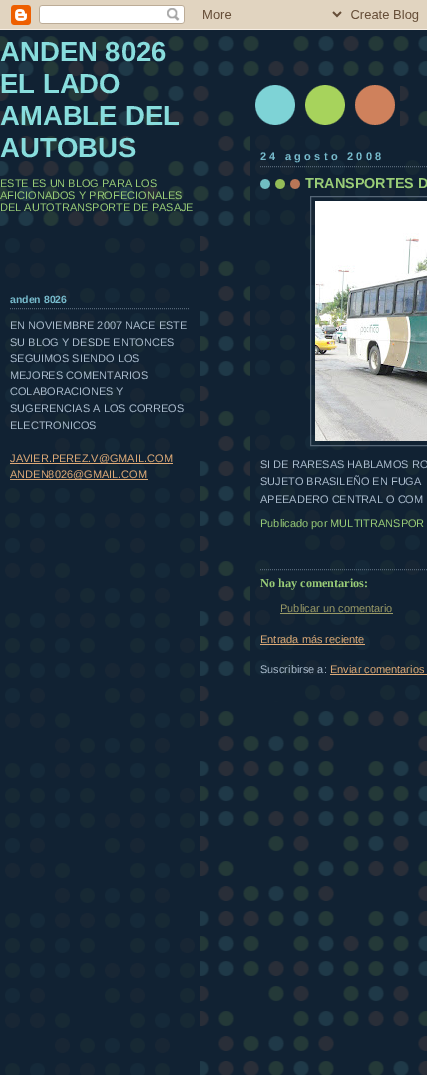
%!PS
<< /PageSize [427 1075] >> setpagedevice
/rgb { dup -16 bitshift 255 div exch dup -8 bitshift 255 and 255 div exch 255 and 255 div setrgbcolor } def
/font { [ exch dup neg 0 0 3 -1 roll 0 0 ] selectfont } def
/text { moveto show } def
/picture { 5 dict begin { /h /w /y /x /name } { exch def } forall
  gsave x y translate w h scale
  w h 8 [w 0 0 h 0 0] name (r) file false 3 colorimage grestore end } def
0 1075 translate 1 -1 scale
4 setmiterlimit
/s1 { /LiberationSans-Bold 27.5 font 16#88DDDD rgb } def
/s2 { /LiberationSans-Regular 11 font 16#99CC77 rgb } def
/s3 { /LiberationSans-Bold 10.5 font 16#77BBCC rgb } def
/s4 { /LiberationSans-Regular 11 font 16#AABBCC rgb } def
/s5 { /LiberationSans-Regular 11 font 16#DDAA77 rgb } def
/s6 { /LiberationSans-Bold 14.4 font 16#99CC77 rgb } def
/s7 { /LiberationSerif-Bold 12.25 font 16#99CC77 rgb } def
/s8 { /LiberationSans-Regular 11 font 16#999966 rgb } def
16#FFFFFF rgb
0 0 427 1075 rectfill
(pic1.raw) 0 30 427 1045 picture
(pic2.raw) 0 0 427 30 picture
(pic3.raw) 255 85 145 41 picture
s1
(ANDEN 8026) 0 61 text
(EL LADO) 0 93 text
(AMABLE DEL) 0 125 text
(AUTOBUS) 0 157 text
s2
(ESTE ES UN BLOG PARA LOS) 0 187 text
(AFICIONADOS Y PROFECIONALES) 0 199 text
(DEL AUTOTRANSPORTE DE PASAJE) 0 211 text
(pic4.raw) 0 236 200 839 picture
16#556677 rgb
[1 1] 0 setdash
10 308.5 moveto 190 308.5 lineto stroke
s3
(anden 8026) 10 303 text
s4
(EN NOVIEMBRE 2007 NACE ESTE) 10 329 text
(SU BLOG Y DESDE ENTONCES) 10 346 text
(SEGUIMOS SIENDO LOS) 10 362 text
(MEJORES COMENTARIOS) 10 379 text
(COLABORACIONES Y) 10 395 text
(SUGERENCIAS A LOS CORREOS) 10 412 text
(ELECTRONICOS) 10 429 text
16#DDAA77 rgb
10 463 163 1 rectfill
(JAVIER.PEREZ.V@GMAIL.COM) 10 462 text
10 479 138 1 rectfill
(ANDEN8026@GMAIL.COM) 10 478 text
(pic5.raw) 250 135 177 566 picture
16#556677 rgb
260 166.5 moveto 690 166.5 lineto stroke
/LiberationSans-Bold 11 font
16#77BBCC rgb
260 160 moveto 3.25 0 (24 agosto 2008) ashow
(pic6.raw) 260 179 40 10 picture
s6
(TRANSPORTES D) 305 188 text
16#556677 rgb
[] 0 setdash
310.5 196.5 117 249 rectstroke
(pic7.raw) 315 201 112 240 picture
s4
(SI DE RARESAS HABLAMOS RO) 260 468 text
(SUJETO BRASILEÑO EN FUGA) 260 485 text
(APEEADERO CENTRAL O COM) 260 503 text
s2
(Publicado por MULTITRANSPOR) 260 527 text
16#556677 rgb
[1 1] 0 setdash
260 569.5 moveto 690 569.5 lineto stroke
s7
(No hay comentarios:) 260 587 text
s8
(Publicar un comentario) 280 612 text
280 613 113 1 rectfill
s5
(Entrada más reciente) 260 643 text
260 644 105 1 rectfill
s4
(Suscribirse a:) 260 673 text
s5
(Enviar comentarios) 330 673 text
330 674 97 1 rectfill
showpage
